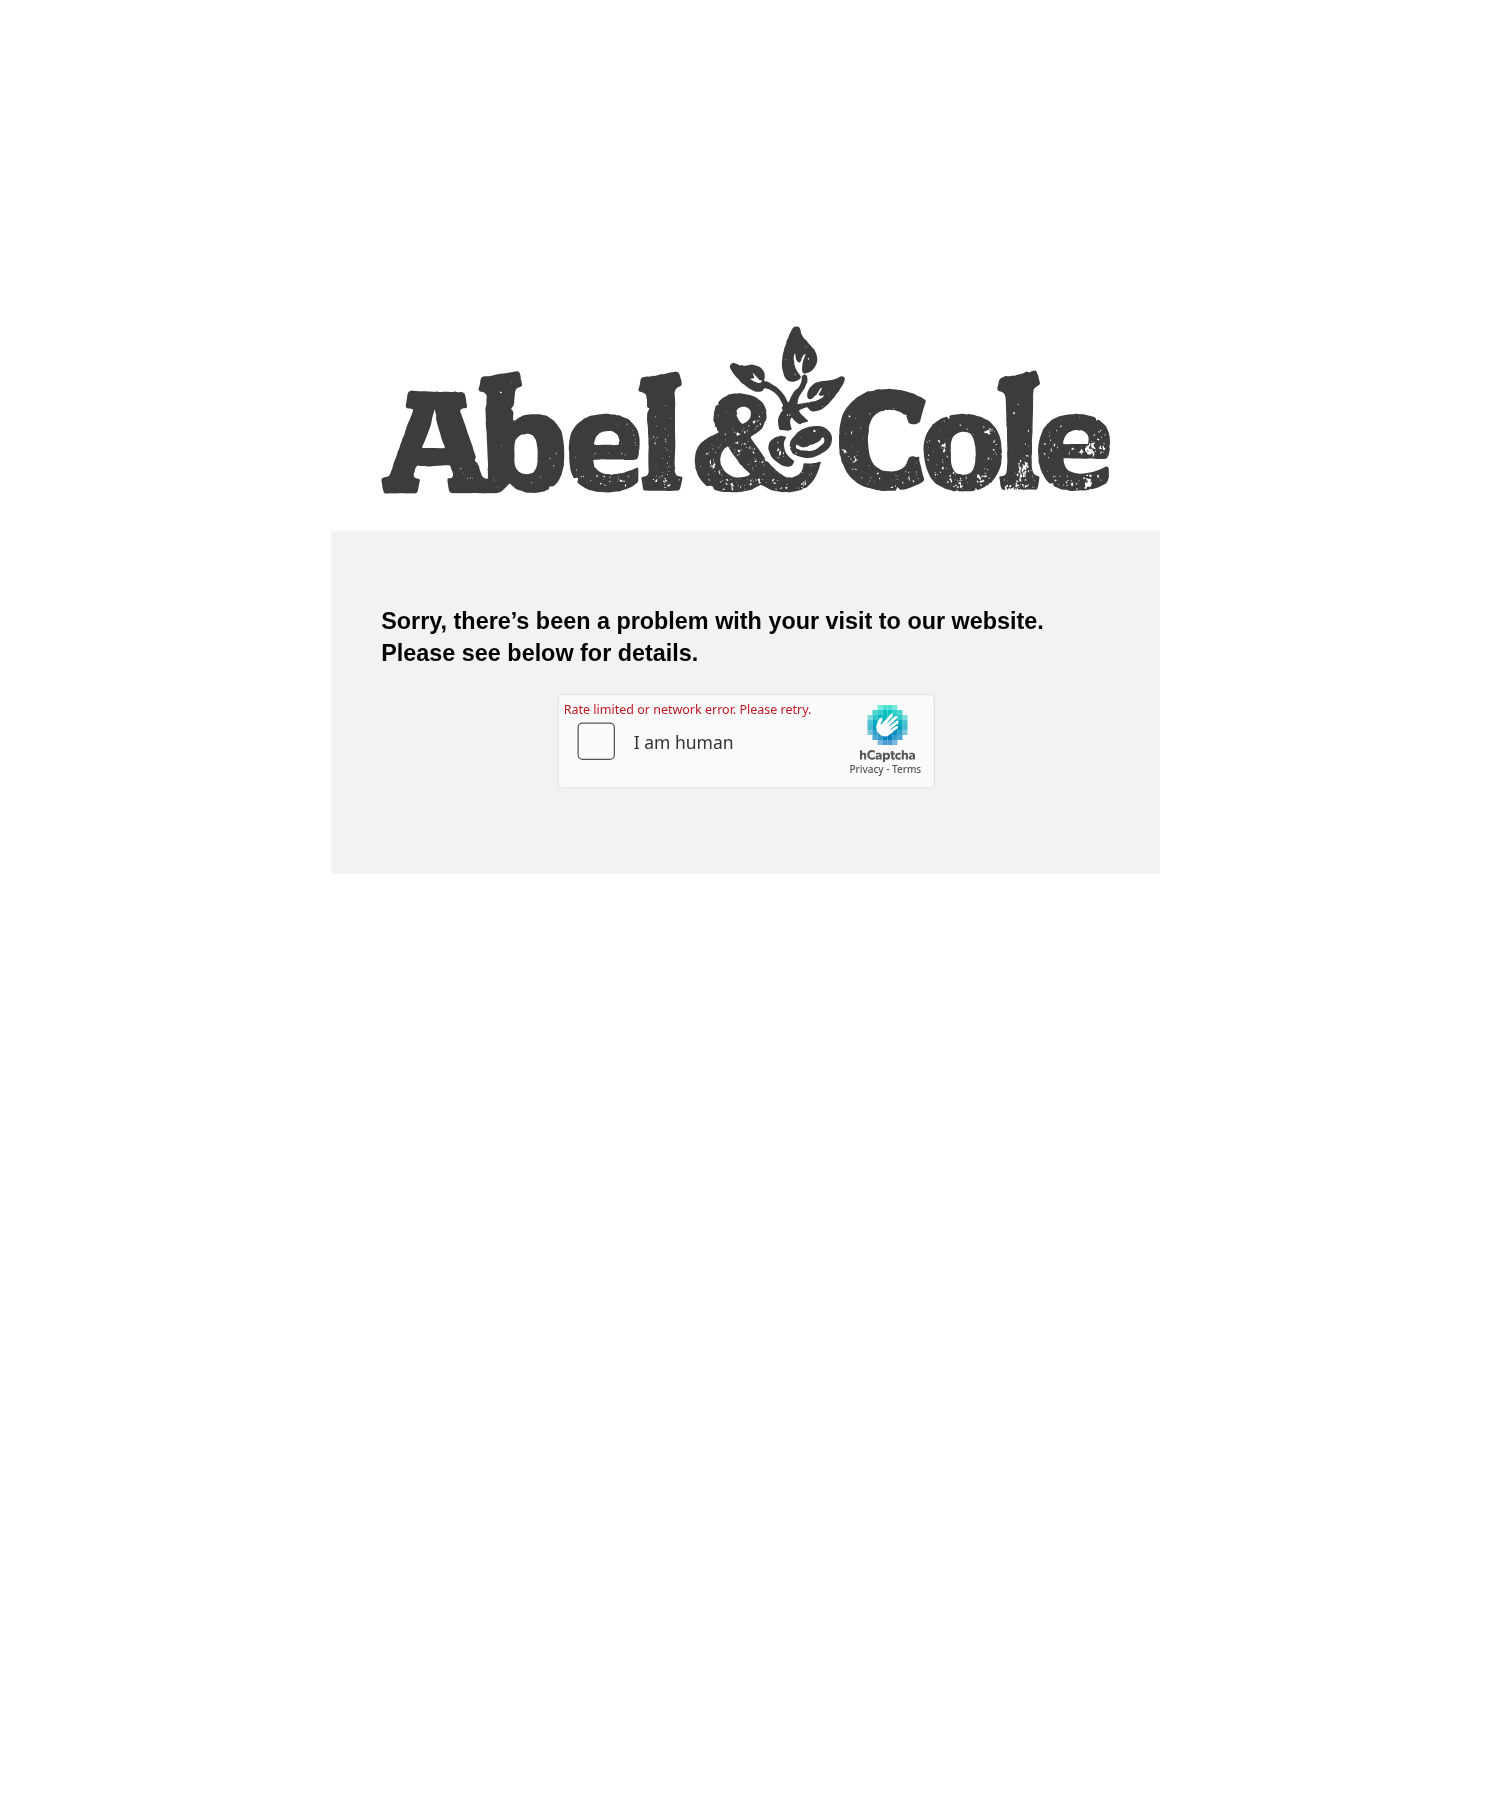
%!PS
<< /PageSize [1491 1797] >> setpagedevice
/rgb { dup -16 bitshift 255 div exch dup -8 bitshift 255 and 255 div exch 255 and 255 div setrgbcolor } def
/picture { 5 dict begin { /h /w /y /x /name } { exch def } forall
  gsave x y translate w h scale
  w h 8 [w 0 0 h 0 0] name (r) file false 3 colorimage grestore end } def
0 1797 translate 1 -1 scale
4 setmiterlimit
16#FFFFFF rgb
0 0 1491 1797 rectfill
(pic1.raw) 331 326 829 548 picture
showpage
